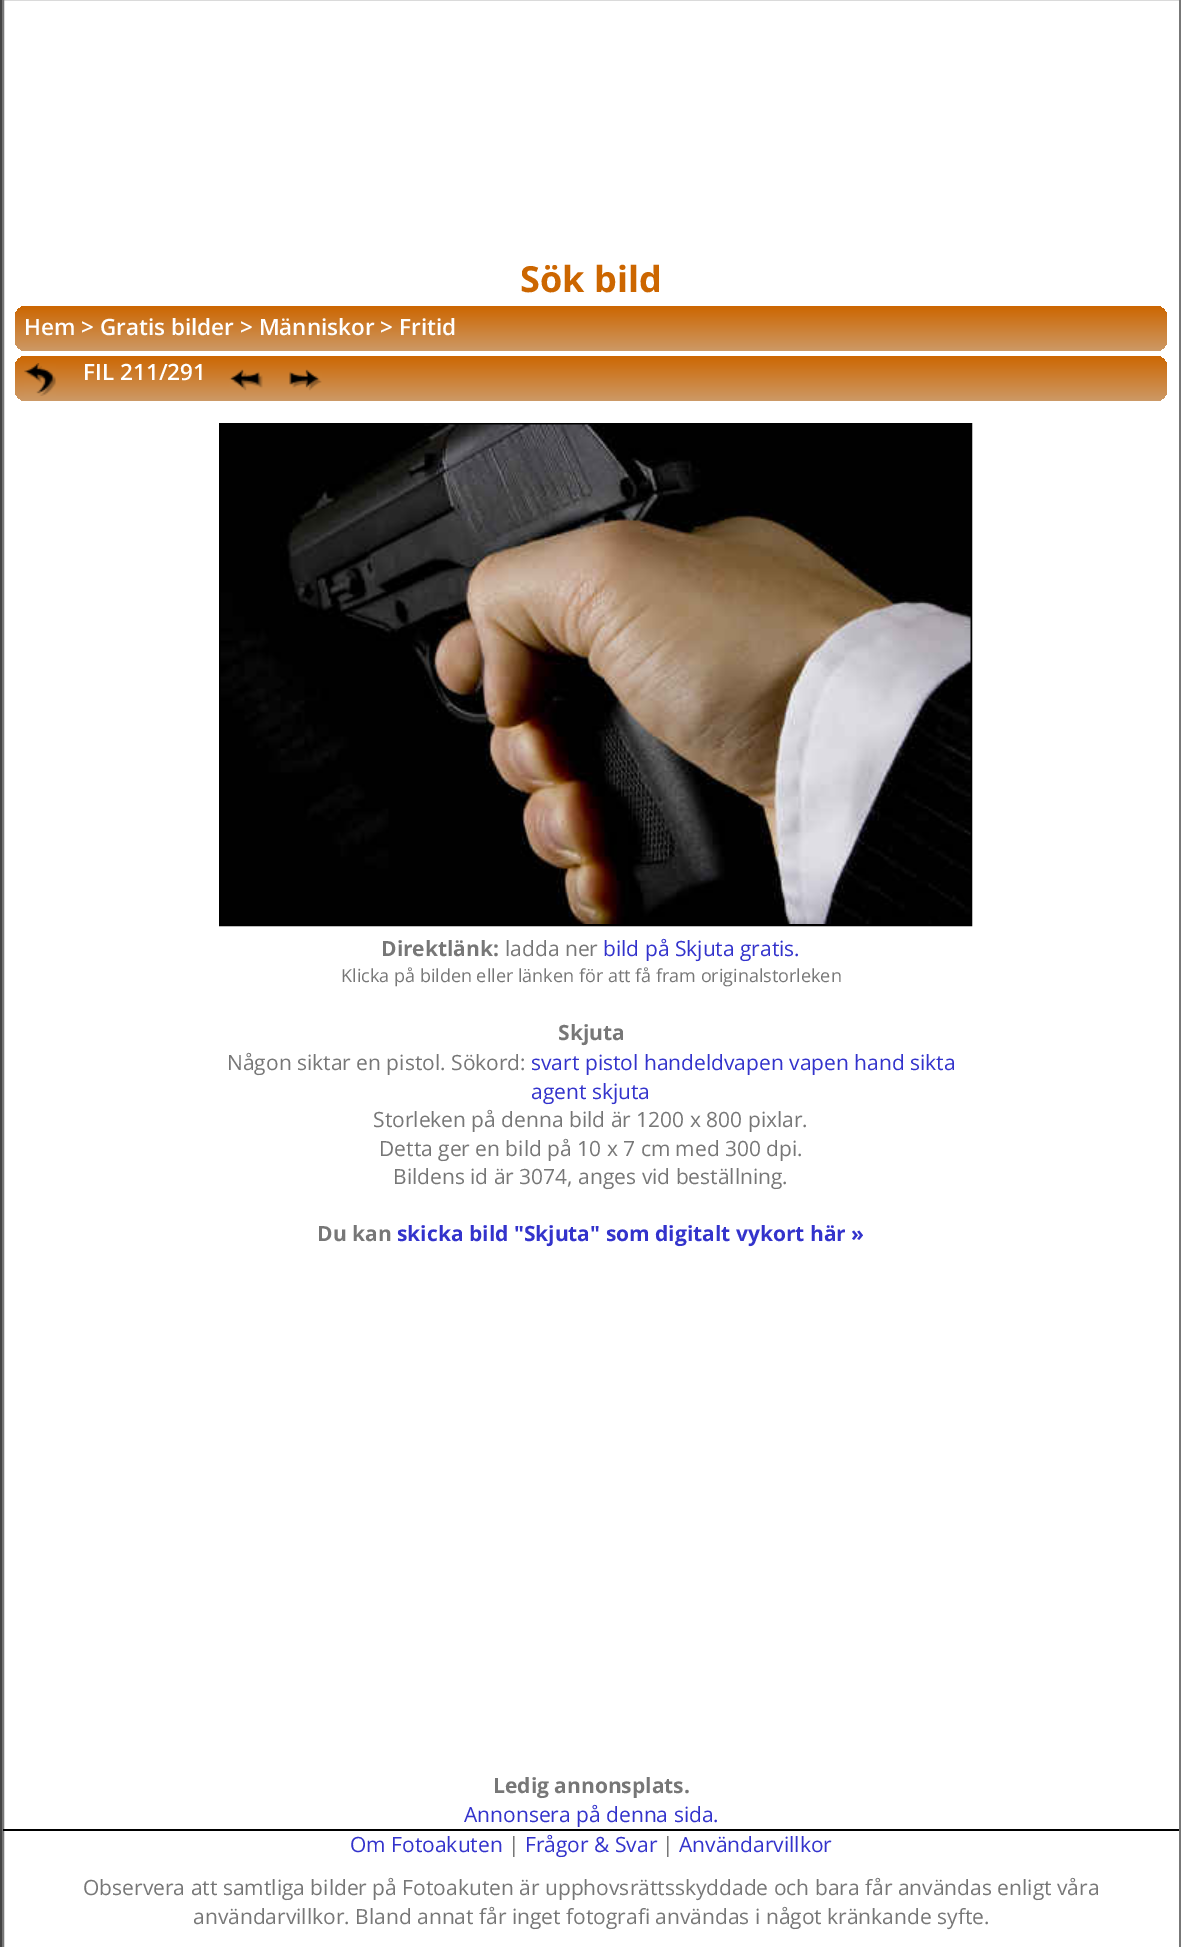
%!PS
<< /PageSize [1181 1947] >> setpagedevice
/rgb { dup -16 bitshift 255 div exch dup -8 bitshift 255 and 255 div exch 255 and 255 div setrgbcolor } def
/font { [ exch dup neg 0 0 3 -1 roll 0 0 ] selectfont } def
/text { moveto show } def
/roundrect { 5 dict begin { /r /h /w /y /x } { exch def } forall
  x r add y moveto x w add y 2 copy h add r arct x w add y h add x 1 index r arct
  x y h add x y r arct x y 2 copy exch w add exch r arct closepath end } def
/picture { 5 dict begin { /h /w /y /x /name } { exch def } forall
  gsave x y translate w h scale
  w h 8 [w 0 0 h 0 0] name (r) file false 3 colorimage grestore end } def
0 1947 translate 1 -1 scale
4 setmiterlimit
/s1 { /OpenSans-Bold 36 font 16#CC6600 rgb } def
/s2 { /OpenSans-SemiBold 22.5 font 16#FFFFFF rgb } def
/s3 { /OpenSans-Bold 21 font 16#777777 rgb } def
/s4 { /OpenSans-Regular 21 font 16#777777 rgb } def
/s5 { /OpenSans-Regular 21 font 16#3333CC rgb } def
/s6 { /OpenSans-Regular 18 font 16#777777 rgb } def
/s7 { /OpenSans-Bold 21 font 16#3333CC rgb } def
16#444444 rgb
0 0 1181 1947 rectfill
16#FFFFFF rgb
3 -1 moveto 1180 -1 lineto 1180 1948 lineto 3 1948 lineto closepath gsave fill grestore
16#777777 rgb
2 setlinewidth
stroke
s1
(Sök bild) 520 292 text
gsave 15 306 1152 45 11 roundrect clip newpath
<< /ShadingType 2 /ColorSpace /DeviceRGB /Coords [591 306 591 351] /Extend [true true] /Function << /FunctionType 2 /Domain [0 1] /C0 [0.8 0.4 0] /C1 [0.8 0.6 0.4] /N 1 >> >> shfill grestore
s2
(Hem > Gratis bilder > Människor > Fritid) 24 335 text
gsave 15 356 1152 45 11 roundrect clip newpath
<< /ShadingType 2 /ColorSpace /DeviceRGB /Coords [591 355 591 401] /Extend [true true] /Function << /FunctionType 2 /Domain [0 1] /C0 [0.8 0.4 0] /C1 [0.8 0.6 0.4] /N 1 >> >> shfill grestore
(pic1.raw) 24 363 32 33 picture
(FIL 211/291) 83 380 text
(pic2.raw) 229 369 34 22 picture
(pic3.raw) 289 369 33 22 picture
16#000000 rgb
220 424 751 501 rectstroke
(pic4.raw) 220 424 751 500 picture
s3
(Direktlänk:) 381 956 text
s4
(ladda ner) 505 956 text
s5
(bild på Skjuta gratis.) 603 956 text
s6
(Klicka på bilden eller länken för att få fram originalstorleken) 341 982 text
s3
(Skjuta) 558 1040 text
s4
(Någon siktar en pistol. Sökord:) 227 1070 text
s5
(svart pistol handeldvapen vapen hand sikta) 531 1070 text
(agent skjuta) 531 1099 text
s4
(Storleken på denna bild är 1200 x 800 pixlar.) 373 1127 text
(Detta ger en bild på 10 x 7 cm med 300 dpi.) 379 1156 text
(Bildens id är 3074, anges vid beställning.) 393 1184 text
s3
(Du kan) 317 1241 text
s7
(skicka bild "Skjuta" som digitalt vykort här ») 397 1241 text
s3
(Ledig annonsplats.) 493 1793 text
s5
(Annonsera på denna sida.) 464 1822 text
16#000000 rgb
3 1829 1176 2 rectfill
s5
(Om Fotoakuten) 350 1852 text
s4
(|) 508 1852 text
s5
(Frågor & Svar) 525 1852 text
s4
(|) 662 1852 text
s5
(Användarvillkor) 679 1852 text
s4
(Observera att samtliga bilder på Fotoakuten är upphovsrättsskyddade och bara får användas enligt våra) 83 1895 text
(användarvillkor. Bland annat får inget fotografi användas i något kränkande syfte.) 193 1924 text
showpage
